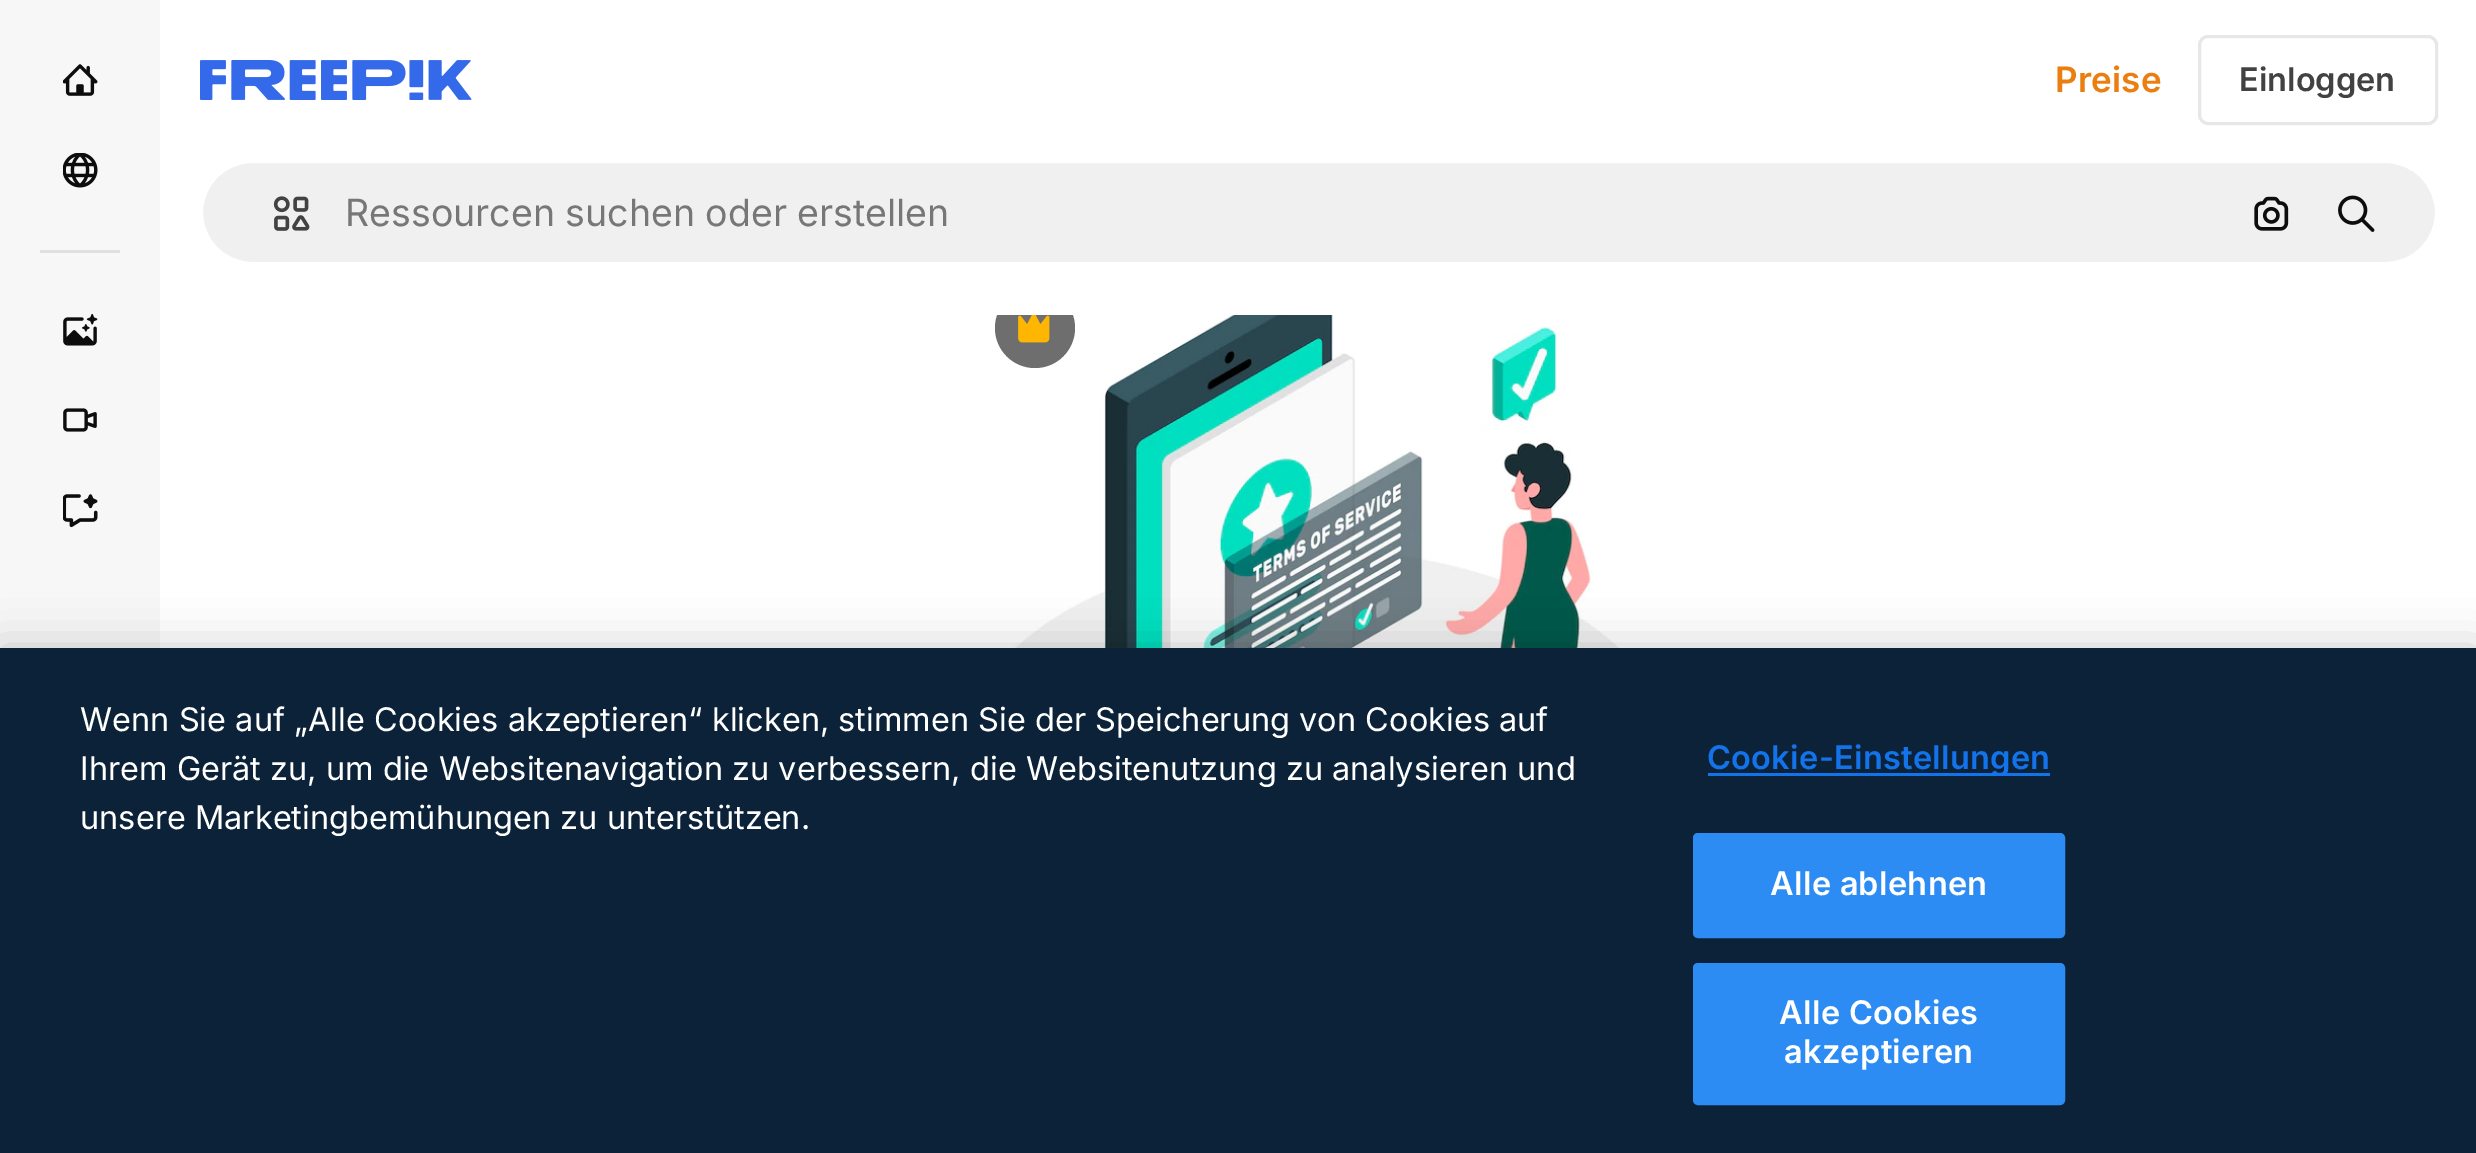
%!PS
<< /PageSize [2476 1153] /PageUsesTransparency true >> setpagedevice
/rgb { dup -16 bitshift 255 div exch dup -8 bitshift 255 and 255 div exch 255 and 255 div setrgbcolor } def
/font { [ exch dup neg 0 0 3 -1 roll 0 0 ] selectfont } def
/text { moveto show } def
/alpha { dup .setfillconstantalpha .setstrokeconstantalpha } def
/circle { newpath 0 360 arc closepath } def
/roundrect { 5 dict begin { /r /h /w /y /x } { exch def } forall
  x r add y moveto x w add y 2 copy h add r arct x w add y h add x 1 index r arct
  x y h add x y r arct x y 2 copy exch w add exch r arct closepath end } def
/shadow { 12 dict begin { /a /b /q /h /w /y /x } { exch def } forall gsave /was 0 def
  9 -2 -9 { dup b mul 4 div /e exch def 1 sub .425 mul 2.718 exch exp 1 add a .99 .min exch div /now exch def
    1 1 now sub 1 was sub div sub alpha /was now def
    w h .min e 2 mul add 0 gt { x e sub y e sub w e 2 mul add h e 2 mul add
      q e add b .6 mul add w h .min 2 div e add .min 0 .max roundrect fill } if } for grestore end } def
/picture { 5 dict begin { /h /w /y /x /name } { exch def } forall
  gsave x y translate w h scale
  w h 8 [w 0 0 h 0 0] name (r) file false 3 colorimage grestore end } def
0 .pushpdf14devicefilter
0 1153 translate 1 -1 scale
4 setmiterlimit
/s1 { /Inter-SemiBold 35 font 16#EA7E11 rgb } def
/s2 { /Inter-SemiBold 32.5 font 16#424242 rgb } def
/s3 { /Inter-Regular 37.5 font 16#777777 rgb } def
/s4 { /Inter-Regular 32.5 font 16#FFFFFF rgb } def
16#FFFFFF rgb
0 0 2476 1153 rectfill
16#F7F7F7 rgb
0 0 160 648 rectfill
(pic1.raw) 63 64 35 32 picture
(pic2.raw) 63 153 35 35 picture
16#E0E0E0 rgb
40 250 80 3 rectfill
(pic3.raw) 63 314 35 32 picture
(pic4.raw) 63 408 34 24 picture
(pic5.raw) 63 494 35 34 picture
(pic11.raw) 963 315 708 333 picture
16#6E6E6E rgb
1035 328 40 circle fill
16#FFFFFF rgb
997 288 76 27 rectfill
(pic6.raw) 200 60 272 40 picture
s1
(Preise) 2055 92 text
16#E7E7E7 rgb
3 setlinewidth
2199.5 36.5 237 87 8.5 roundrect stroke
s2
(Einloggen) 2239 91 text
16#F0F0F0 rgb
201.5 161.5 2235 102 51 roundrect gsave fill grestore
16#FFFFFF rgb
stroke
(pic7.raw) 273 196 37 35 picture
s3
(Ressourcen suchen oder erstellen) 345 226 text
(pic8.raw) 2254 196 35 35 picture
(pic9.raw) 2338 195 37 37 picture
(pic10.raw) 1018 315 32 28 picture
16#000000 rgb
0 648 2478 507 0 22.5 0.2 shadow
16#0B2239 rgb
0 648 2476 505 rectfill
s4
(Wenn Sie auf „Alle Cookies akzeptieren“ klicken, stimmen Sie der Speicherung von Cookies auf) 80 731 text
(Ihrem Gerät zu, um die Websitenavigation zu verbessern, die Websitenutzung zu analysieren und) 80 780 text
(unsere Marketingbemühungen zu unterstützen.) 80 829 text
16#1273EB rgb
1708 773 342 3 rectfill
/Inter-SemiBold 32.5 font
1707 769 moveto 0.3 0 (Cookie-Einstellungen) ashow
16#2C8CF4 rgb
1694.5 834.5 369 102 3.5 roundrect gsave fill grestore
stroke
16#FFFFFF rgb
1770 895 moveto 0.3 0 (Alle ablehnen) ashow
16#2C8CF4 rgb
1694.5 964.5 369 139 3.5 roundrect gsave fill grestore
stroke
16#FFFFFF rgb
1779 1024 moveto 0.3 0 (Alle Cookies) ashow
1784 1063 moveto 0.3 0 (akzeptieren) ashow
.poppdf14devicefilter showpage
